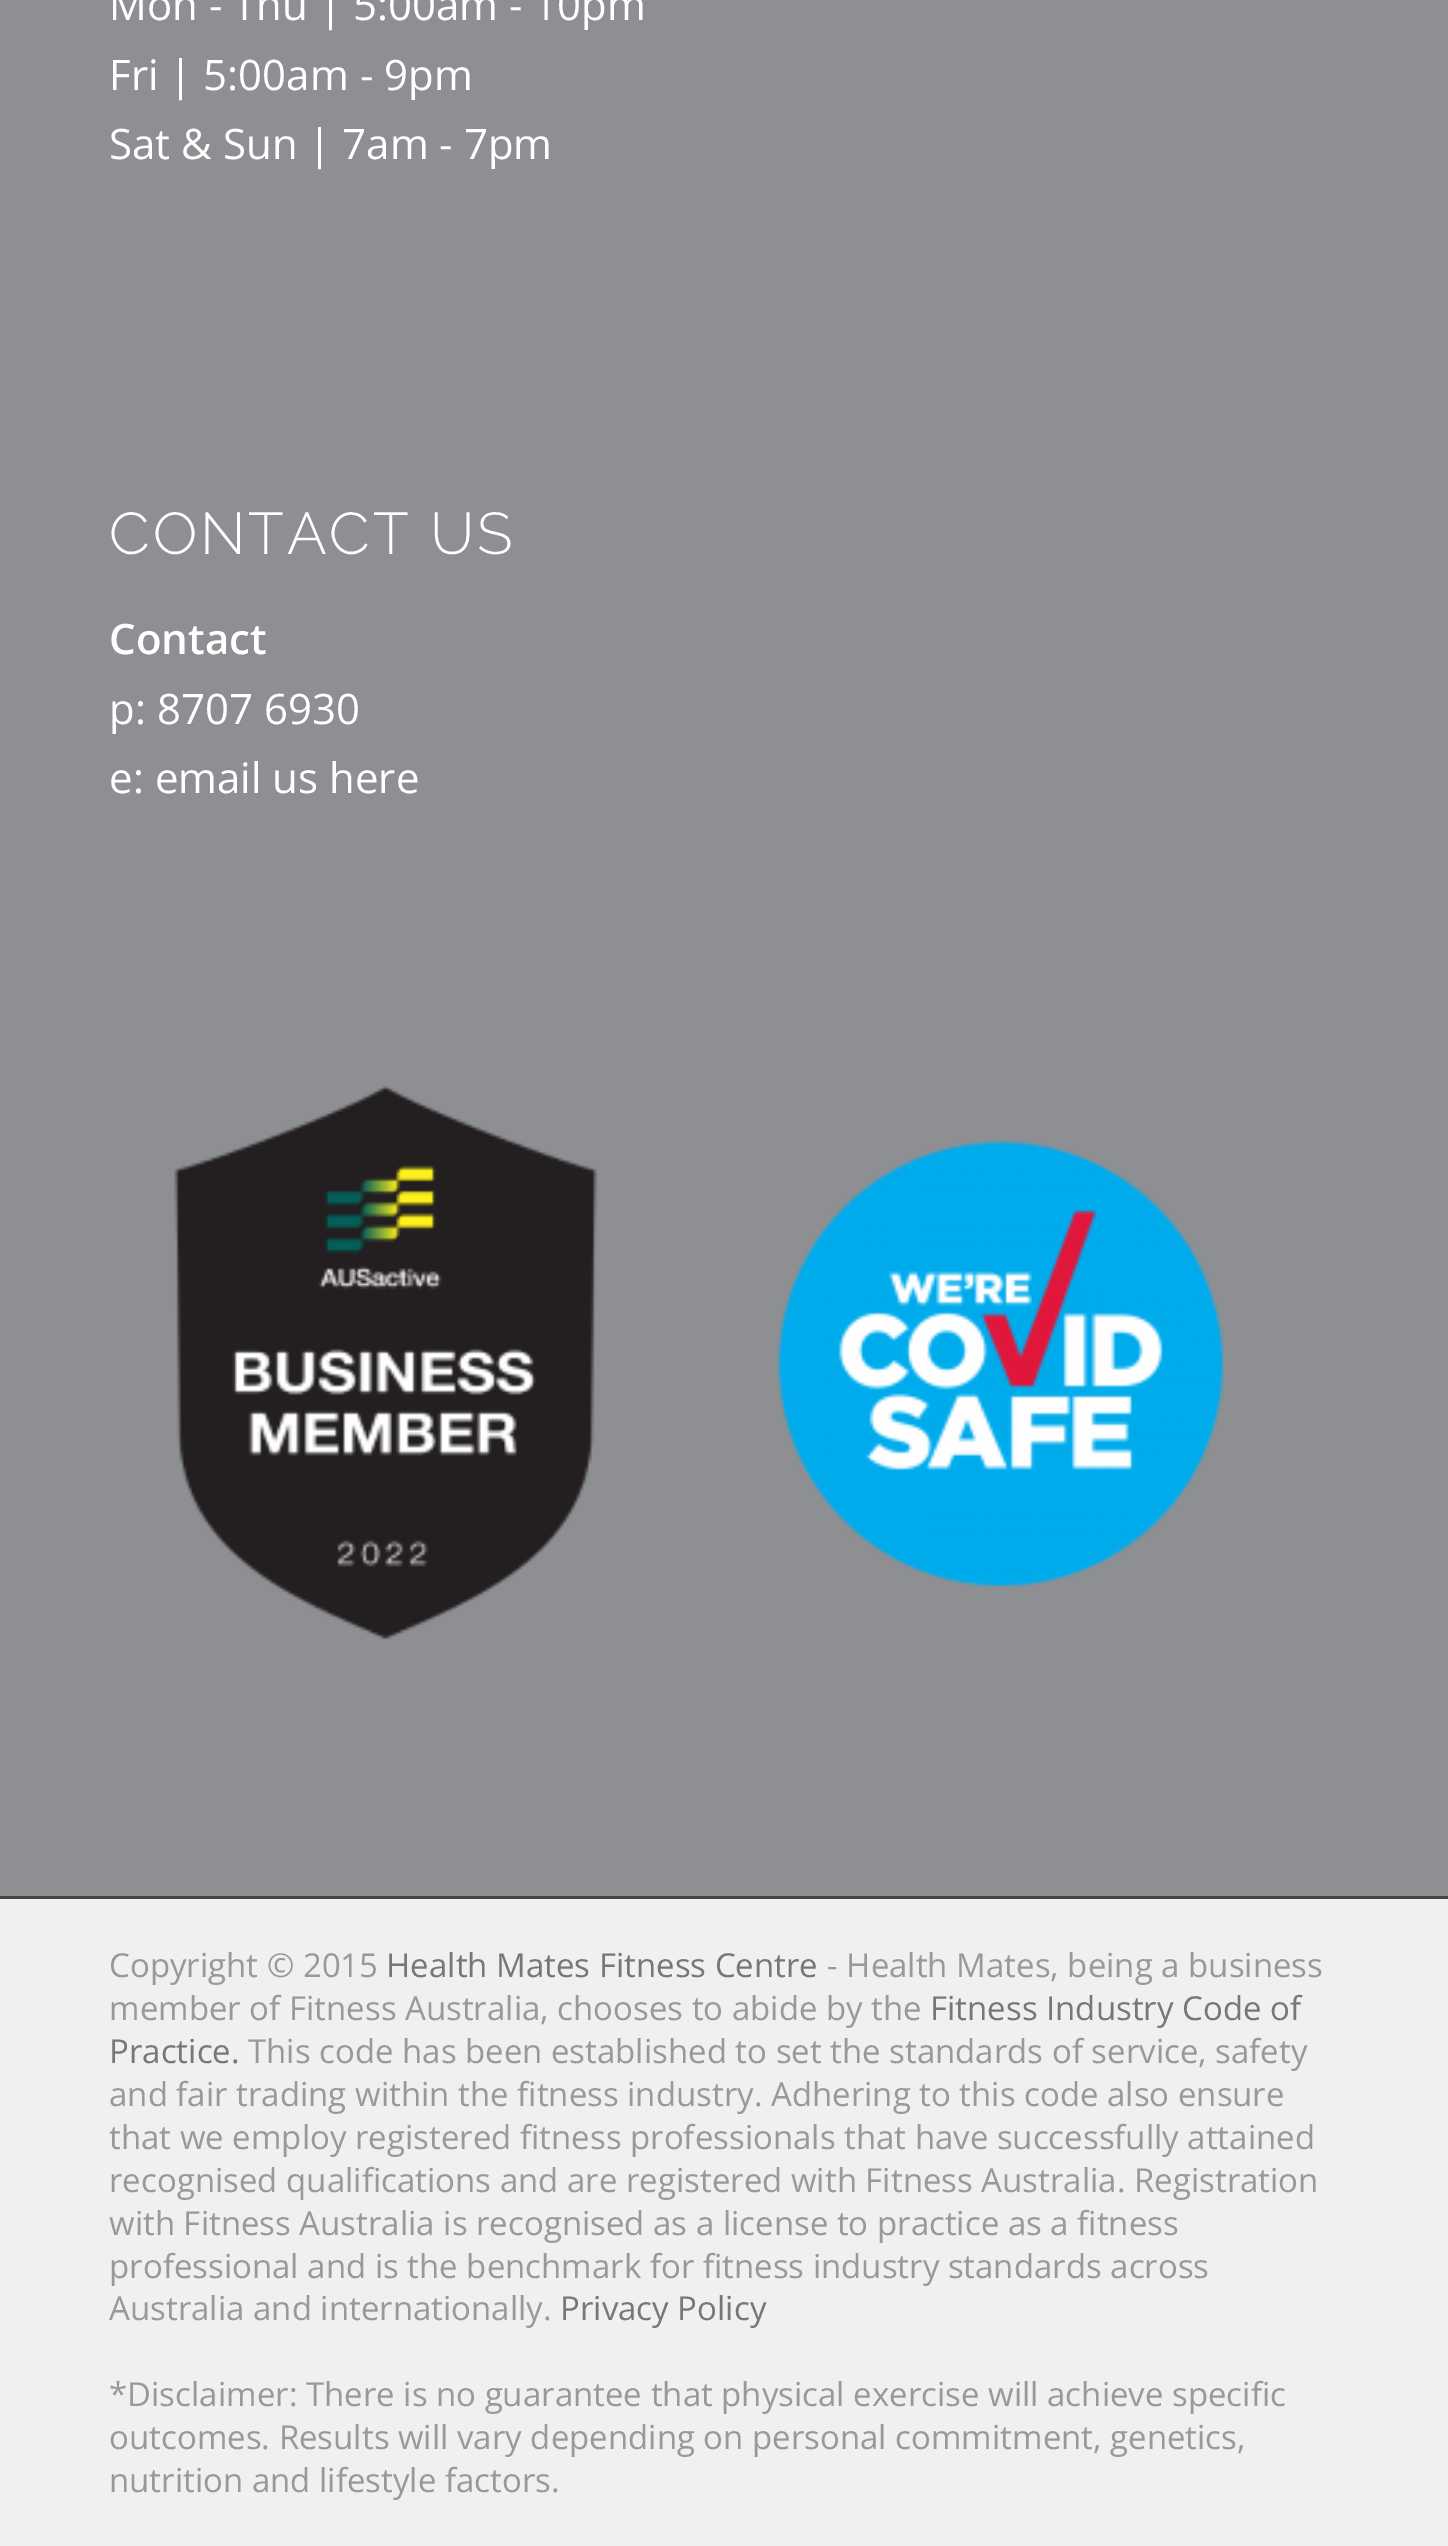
%!PS
<< /PageSize [1448 2546] >> setpagedevice
/rgb { dup -16 bitshift 255 div exch dup -8 bitshift 255 and 255 div exch 255 and 255 div setrgbcolor } def
/font { [ exch dup neg 0 0 3 -1 roll 0 0 ] selectfont } def
/text { moveto show } def
/picture { 5 dict begin { /h /w /y /x /name } { exch def } forall
  gsave x y translate w h scale
  w h 8 [w 0 0 h 0 0] name (r) file false 3 colorimage grestore end } def
0 2546 translate 1 -1 scale
4 setmiterlimit
/s1 { /OpenSans-Regular 42 font 16#FFFFFF rgb } def
/s2 { /OpenSans-SemiBold 42 font 16#FFFFFF rgb } def
/s3 { /OpenSans-Regular 33 font 16#999999 rgb } def
/s4 { /OpenSans-Regular 33 font 16#777777 rgb } def
16#8D8F92 rgb
0 0 1448 2546 rectfill
s1
(Mon - Thu | 5:00am - 10pm) 109 20 text
(Fri | 5:00am - 9pm) 109 90 text
(Sat & Sun | 7am - 7pm) 109 159 text
/Raleway-Thin 58.75 font
109 554 moveto 3 0 (CONTACT US) ashow
s2
(Contact) 109 654 text
s1
(p: 8707 6930) 109 724 text
(e: email us here) 109 793 text
(pic1.raw) 174 1086 424 554 picture
(pic2.raw) 777 1140 447 447 picture
16#F0F0F0 rgb
0 1899 1448 647 rectfill
16#444444 rgb
0 1896 1448 3 rectfill
s3
(Copyright © 2015) 109 1977 text
s4
(Health Mates Fitness Centre) 386 1977 text
s3
(- Health Mates, being a business) 827 1977 text
(member of Fitness Australia, chooses to abide by the) 109 2020 text
s4
(Fitness Industry Code of) 930 2020 text
(Practice.) 109 2063 text
s3
(This code has been established to set the standards of service, safety) 248 2063 text
(and fair trading within the fitness industry. Adhering to this code also ensure) 109 2106 text
(that we employ registered fitness professionals that have successfully attained) 109 2149 text
(recognised qualifications and are registered with Fitness Australia. Registration) 109 2192 text
(with Fitness Australia is recognised as a license to practice as a fitness) 109 2235 text
(professional and is the benchmark for fitness industry standards across) 109 2278 text
(Australia and internationally.) 109 2320 text
s4
(Privacy Policy) 560 2320 text
s3
(*Disclaimer: There is no guarantee that physical exercise will achieve specific) 109 2406 text
(outcomes. Results will vary depending on personal commitment, genetics,) 109 2449 text
(nutrition and lifestyle factors.) 109 2492 text
showpage
